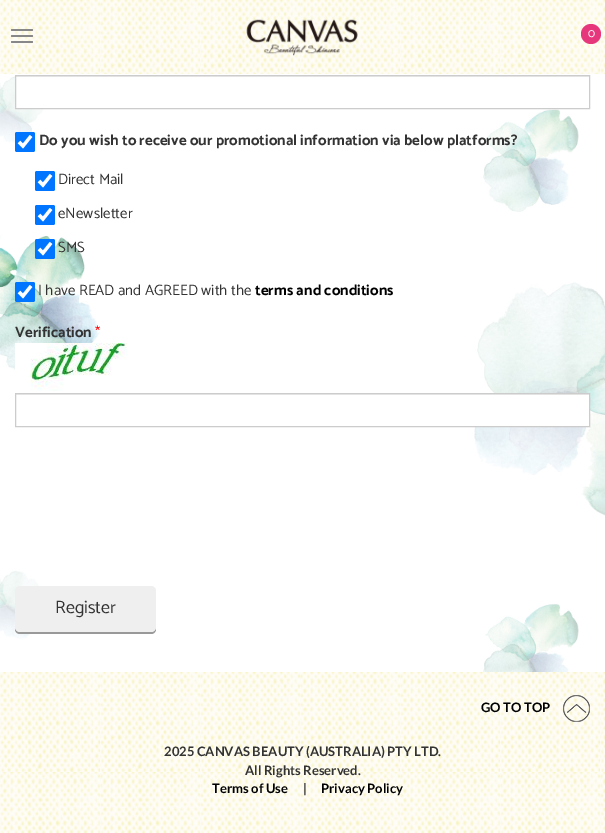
%!PS
<< /PageSize [605 833] >> setpagedevice
/rgb { dup -16 bitshift 255 div exch dup -8 bitshift 255 and 255 div exch 255 and 255 div setrgbcolor } def
/font { [ exch dup neg 0 0 3 -1 roll 0 0 ] selectfont } def
/text { moveto show } def
/circle { newpath 0 360 arc closepath } def
/roundrect { 5 dict begin { /r /h /w /y /x } { exch def } forall
  x r add y moveto x w add y 2 copy h add r arct x w add y h add x 1 index r arct
  x y h add x y r arct x y 2 copy exch w add exch r arct closepath end } def
/picture { 5 dict begin { /h /w /y /x /name } { exch def } forall
  gsave x y translate w h scale
  w h 8 [w 0 0 h 0 0] name (r) file false 3 colorimage grestore end } def
0 833 translate 1 -1 scale
4 setmiterlimit
/s1 { /Catamaran-Regular 12 font 16#FFFFFF rgb } def
/s2 { /Catamaran-Bold 15 font 16#333333 rgb } def
/s3 { /Catamaran-Regular 15 font 16#333333 rgb } def
/s4 { /Catamaran-Bold 15 font 16#000000 rgb } def
/s5 { /Catamaran-Regular 15 font 16#FF0000 rgb } def
/s6 { /Catamaran-Regular 18 font 16#333333 rgb } def
/s7 { /Lato-Bold 13 font 16#000000 rgb } def
/s8 { /Lato-Bold 13 font 16#333333 rgb } def
16#FFFFFF rgb
0 0 605 833 rectfill
(pic1.raw) 0 0 605 74 picture
(pic2.raw) 246 19 112 37 picture
16#888888 rgb
11 29 22 2 1 roundrect fill
11 35 22 2 1 roundrect fill
11 41 22 2 1 roundrect fill
16#E6377D rgb
591 34 10 circle fill
s1
(0) 588 37 text
(pic3.raw) 0 74 605 598 picture
16 77 27 31 rectfill
16#ECECEC rgb
16 76 573 1 rectfill
16#CCCCCC rgb
15.5 75.5 574 33 rectstroke
16#0075FF rgb
15 132 20 20 2 roundrect fill
16#FFFFFF rgb
3.2 setlinewidth
19 142 moveto 23 146 lineto 31 136 lineto stroke
s2
(Do you wish to receive our promotional information via below platforms?) 39 145 text
16#0075FF rgb
35 171 20 20 2 roundrect fill
16#FFFFFF rgb
39 181 moveto 43 185 lineto 51 175 lineto stroke
s3
(Direct Mail) 58 184 text
16#0075FF rgb
35 205 20 20 2 roundrect fill
16#FFFFFF rgb
39 215 moveto 43 219 lineto 51 209 lineto stroke
s3
(eNewsletter) 58 218 text
16#0075FF rgb
35 239 20 20 2 roundrect fill
16#FFFFFF rgb
39 249 moveto 43 253 lineto 51 243 lineto stroke
s3
(SMS) 58 252 text
16#0075FF rgb
15 282 20 20 2 roundrect fill
16#FFFFFF rgb
19 292 moveto 23 296 lineto 31 286 lineto stroke
s3
(I have READ and AGREED with the) 38 295 text
s4
(terms and conditions) 255 295 text
s2
(Verification) 15 337 text
s5
(*) 95 337 text
(pic4.raw) 15 343 112 48 picture
16#FFFFFF rgb
475 395 114 31 rectfill
16#ECECEC rgb
16 394 573 1 rectfill
16#CCCCCC rgb
1 setlinewidth
15.5 393.5 574 33 rectstroke
16#999999 rgb
15 627 moveto 15 629 lineto 15 632 17 634 20 634 curveto 151 634 lineto 154 634 156 632 156 629 curveto 156 627 lineto 156 630 154 632 151 632 curveto 20 632 lineto 17 632 15 630 15 627 curveto closepath fill
16#EFEFEF rgb
15 586 141 46 5 roundrect fill
s6
(Register) 55 613 text
(pic5.raw) 0 672 605 161 picture
s7
(GO TO TOP) 481 712 text
(pic6.raw) 563 695 27 27 picture
s8
(2025 CANVAS BEAUTY \(AUSTRALIA\) PTY LTD.) 164 756 text
(All Rights Reserved.) 245 775 text
s7
(Terms of Use) 212 793 text
s8
(|) 303 793 text
s7
(Privacy Policy) 321 793 text
showpage
